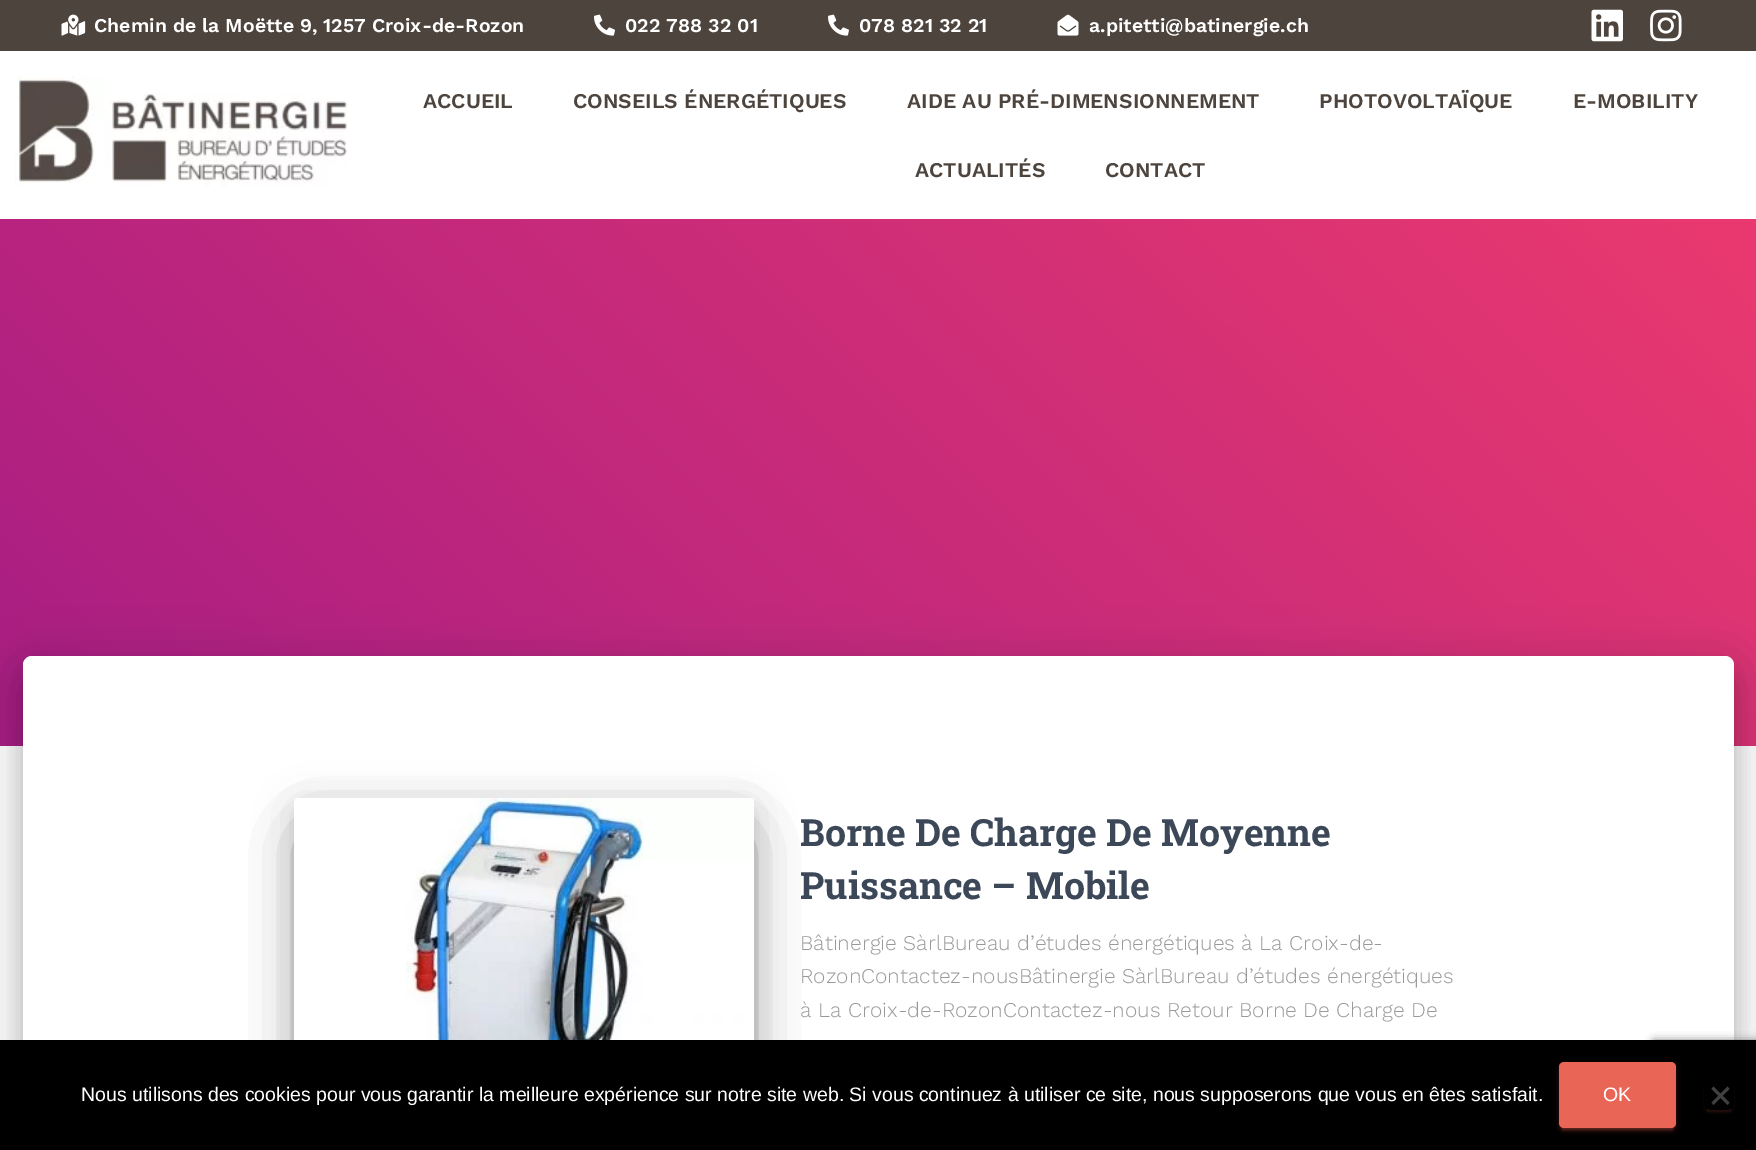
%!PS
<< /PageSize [1756 1150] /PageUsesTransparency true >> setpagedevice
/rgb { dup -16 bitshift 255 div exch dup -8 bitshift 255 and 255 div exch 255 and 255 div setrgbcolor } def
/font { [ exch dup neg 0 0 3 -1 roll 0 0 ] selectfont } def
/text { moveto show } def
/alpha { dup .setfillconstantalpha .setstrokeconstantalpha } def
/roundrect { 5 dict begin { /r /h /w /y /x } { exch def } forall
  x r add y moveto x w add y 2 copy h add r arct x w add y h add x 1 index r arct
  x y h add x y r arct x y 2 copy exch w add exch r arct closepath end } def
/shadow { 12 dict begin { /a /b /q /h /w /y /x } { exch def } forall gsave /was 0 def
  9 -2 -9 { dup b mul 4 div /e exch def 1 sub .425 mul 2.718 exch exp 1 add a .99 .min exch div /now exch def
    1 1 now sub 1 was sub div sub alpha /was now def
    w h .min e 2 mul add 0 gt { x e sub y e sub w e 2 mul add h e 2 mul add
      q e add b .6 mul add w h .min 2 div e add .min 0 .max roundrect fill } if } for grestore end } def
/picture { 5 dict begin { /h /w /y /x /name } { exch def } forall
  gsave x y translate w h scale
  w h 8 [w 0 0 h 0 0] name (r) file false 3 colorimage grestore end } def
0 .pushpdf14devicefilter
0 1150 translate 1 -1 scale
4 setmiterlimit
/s1 { /WorkSans-SemiBold 19.5 font 16#FFFFFF rgb } def
/s2 { /WorkSans-SemiBold 21 font 16#4D443E rgb } def
/s3 { /RobotoSlab-Bold 37.5 font 16#3C4858 rgb } def
/s4 { /WorkSans-Light 21 font 16#999999 rgb } def
/s5 { /LiberationSans-Regular 19.5 font 16#FFFFFF rgb } def
16#FFFFFF rgb
0 0 1756 1150 rectfill
16#4D443E rgb
0 0 1756 51 rectfill
(pic1.raw) 61 14 25 22 picture
s1
(Chemin de la Moëtte 9, 1257 Croix-de-Rozon) 94 32 text
(pic2.raw) 594 14 21 22 picture
(022 788 32 01) 625 32 text
(pic2.raw) 828 14 21 22 picture
(078 821 32 21) 859 32 text
(pic3.raw) 1057 14 22 22 picture
(a.pitetti@batinergie.ch) 1089 32 text
(pic4.raw) 1591 9 32 33 picture
(pic5.raw) 1650 9 32 33 picture
(pic6.raw) 15 76 333 111 picture
s2
(ACCUEIL) 423 108 text
(CONSEILS ÉNERGÉTIQUES) 573 108 text
(AIDE AU PRÉ-DIMENSIONNEMENT) 907 108 text
(PHOTOVOLTAÏQUE) 1319 108 text
(E-MOBILITY) 1573 108 text
(ACTUALITÉS) 915 177 text
(CONTACT) 1105 177 text
gsave 0 219 moveto 1756 219 lineto 1756 746 lineto 0 746 lineto closepath clip newpath
<< /ShadingType 2 /ColorSpace /DeviceRGB /Coords [308 1053 1449 -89] /Extend [true true] /Function << /FunctionType 2 /Domain [0 1] /C0 [0.659 0.114 0.518] /C1 [0.918 0.224 0.435] /N 1 >> >> shfill grestore
16#000000 rgb
30 675 1697 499 1.5 7.5 0.2 shadow
15 657 1727 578 17 22.5 0.12 shadow
20 677 1717 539 12 18 0.14 shadow
16#FFFFFF rgb
32 656 moveto 1725 656 lineto 1730 656 1734 660 1734 665 curveto 1734 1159 lineto 23 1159 lineto 23 665 lineto 23 660 27 656 32 656 curveto closepath fill
16#000000 rgb
302 818 445 292 0 7.5 0.2 shadow
294 804 461 308 5 19 0.12 shadow
312 840 425 272 0 28.5 0.56 shadow
(pic7.raw) 294 798 460 242 picture
s3
(Borne De Charge De Moyenne) 800 846 text
(Puissance – Mobile) 800 899 text
s4
(Bâtinergie SàrlBureau d’études énergétiques à La Croix-de-) 800 950 text
(RozonContactez-nousBâtinergie SàrlBureau d’études énergétiques) 800 983 text
(à La Croix-de-RozonContactez-nous Retour Borne De Charge De) 800 1017 text
16#808080 rgb
1652 1040 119 90 3 4 1 shadow
16#000000 rgb
0 1040 1756 110 rectfill
s5
(Nous utilisons des cookies pour vous garantir la meilleure expérience sur notre site web. Si vous continuez à utiliser ce site, nous supposerons que vous en êtes satisfait.) 81 1101 text
16#E96656 rgb
1559 1064 117 66 5 4 0.12 shadow
1562 1070 111 60 1.5 1 0.2 shadow
1559 1065 117 66 5 1.5 0.14 shadow
1559 1062 117 66 5 roundrect fill
s5
(OK) 1603 1101 text
gsave
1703 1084 moveto 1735 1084 lineto 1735 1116 lineto 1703 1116 lineto closepath 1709 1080 moveto 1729 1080 lineto 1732 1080 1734 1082 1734 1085 curveto 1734 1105 lineto 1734 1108 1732 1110 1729 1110 curveto 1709 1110 lineto 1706 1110 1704 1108 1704 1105 curveto 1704 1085 lineto 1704 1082 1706 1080 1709 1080 curveto closepath eoclip newpath
16#75332B rgb
1707 1088 24 24 1.5 1 0.2 shadow
grestore
gsave
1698 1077 moveto 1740 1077 lineto 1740 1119 lineto 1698 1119 lineto closepath 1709 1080 moveto 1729 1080 lineto 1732 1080 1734 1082 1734 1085 curveto 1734 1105 lineto 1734 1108 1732 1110 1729 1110 curveto 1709 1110 lineto 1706 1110 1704 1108 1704 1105 curveto 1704 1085 lineto 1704 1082 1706 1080 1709 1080 curveto closepath eoclip newpath
16#75332B rgb
1704 1083 30 30 5 1.5 0.14 shadow
grestore
16#404040 rgb
1727.5 1086.5 moveto 1729.5 1089 lineto 1713.5 1105 lineto 1711.5 1102.5 lineto closepath fill
1711.5 1089 moveto 1713.5 1086.5 lineto 1729.5 1102.5 lineto 1727.5 1105 lineto closepath fill
.poppdf14devicefilter showpage
